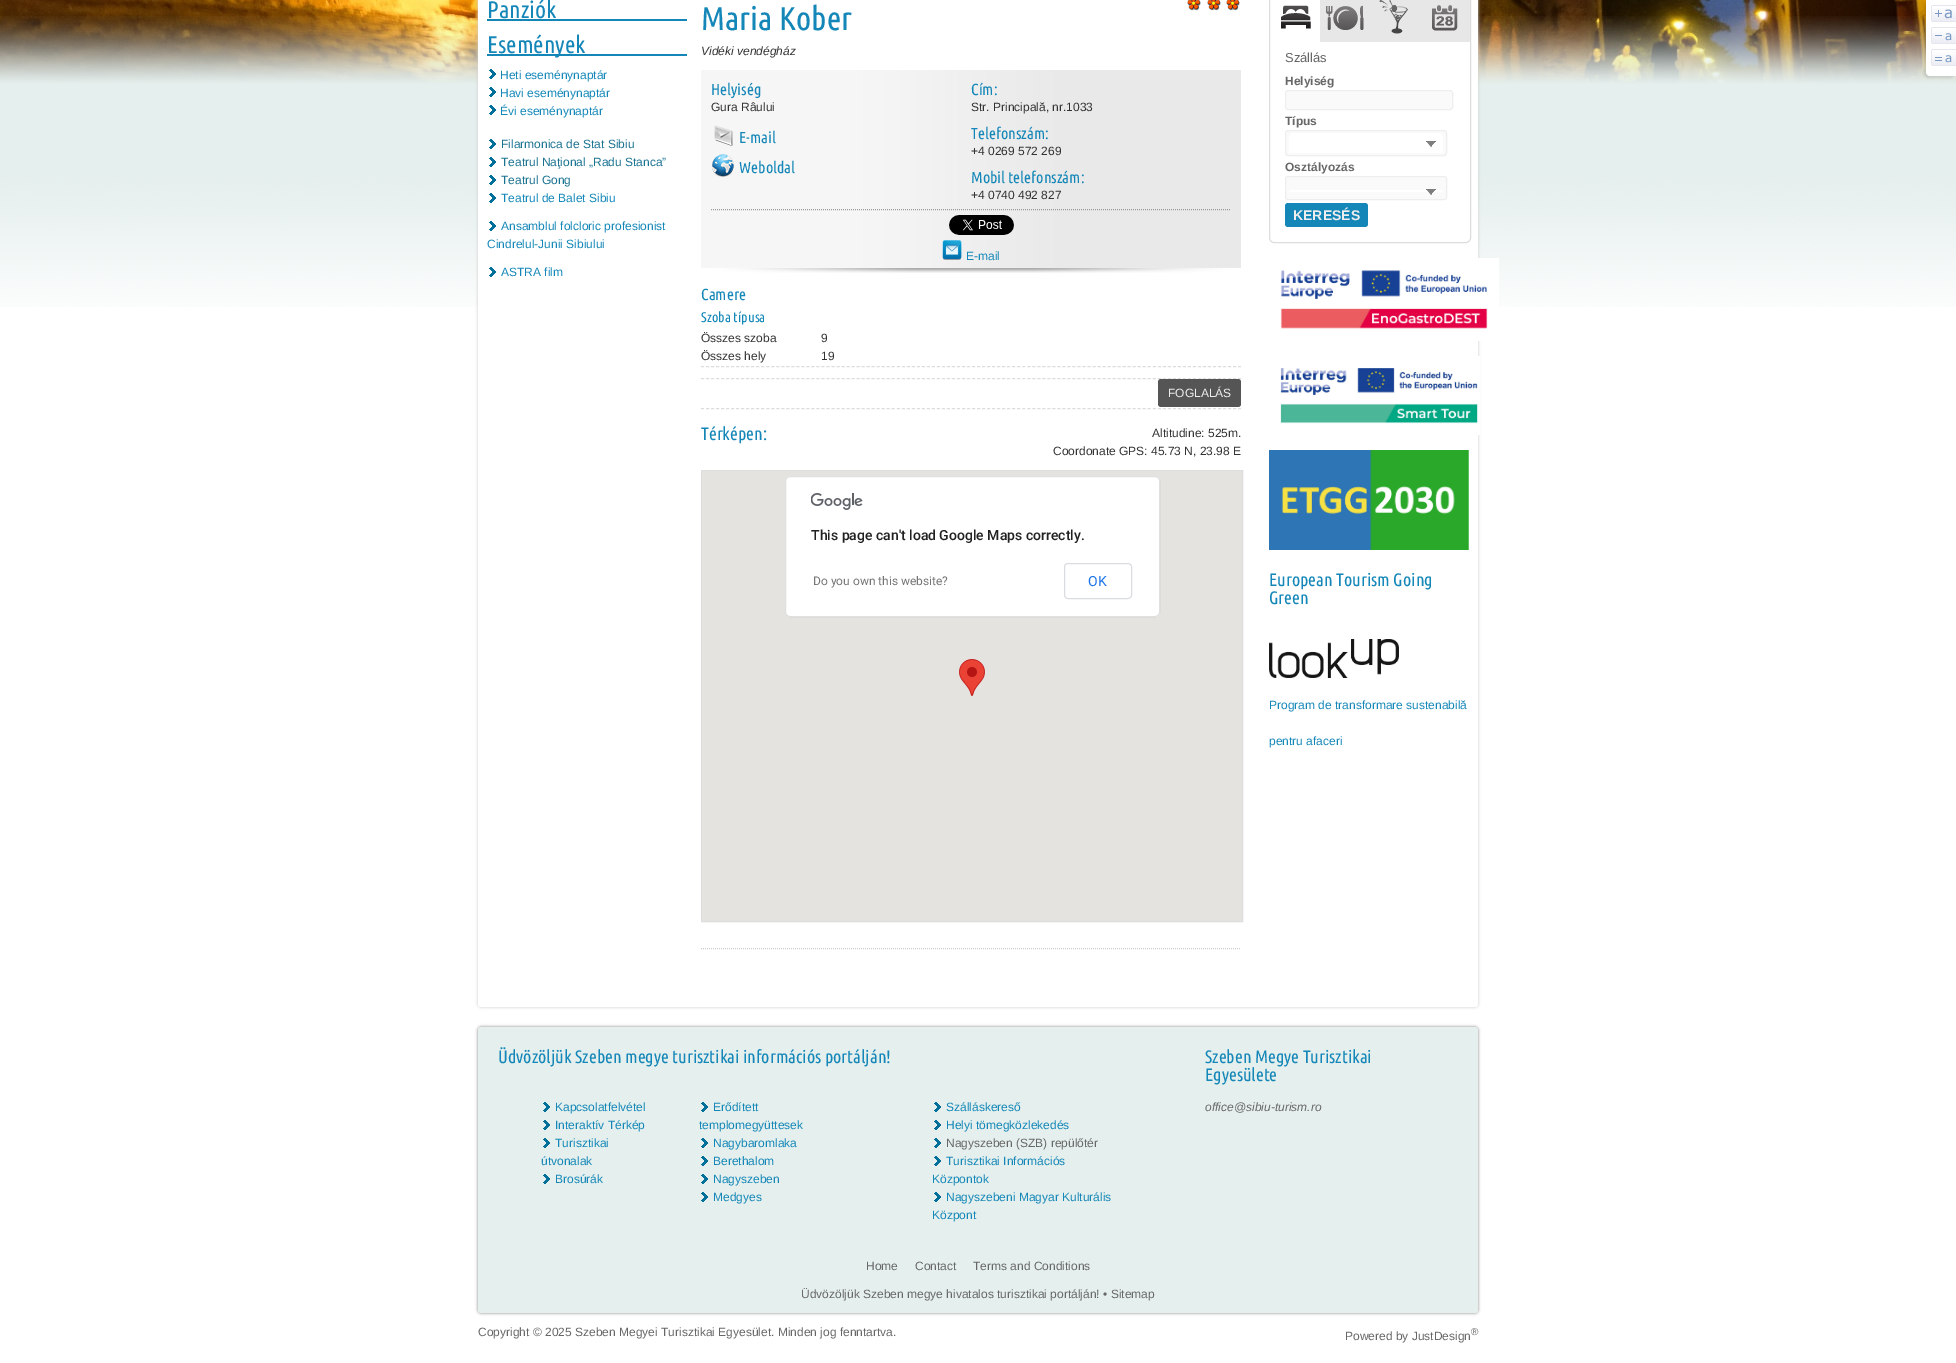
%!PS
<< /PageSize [1956 1363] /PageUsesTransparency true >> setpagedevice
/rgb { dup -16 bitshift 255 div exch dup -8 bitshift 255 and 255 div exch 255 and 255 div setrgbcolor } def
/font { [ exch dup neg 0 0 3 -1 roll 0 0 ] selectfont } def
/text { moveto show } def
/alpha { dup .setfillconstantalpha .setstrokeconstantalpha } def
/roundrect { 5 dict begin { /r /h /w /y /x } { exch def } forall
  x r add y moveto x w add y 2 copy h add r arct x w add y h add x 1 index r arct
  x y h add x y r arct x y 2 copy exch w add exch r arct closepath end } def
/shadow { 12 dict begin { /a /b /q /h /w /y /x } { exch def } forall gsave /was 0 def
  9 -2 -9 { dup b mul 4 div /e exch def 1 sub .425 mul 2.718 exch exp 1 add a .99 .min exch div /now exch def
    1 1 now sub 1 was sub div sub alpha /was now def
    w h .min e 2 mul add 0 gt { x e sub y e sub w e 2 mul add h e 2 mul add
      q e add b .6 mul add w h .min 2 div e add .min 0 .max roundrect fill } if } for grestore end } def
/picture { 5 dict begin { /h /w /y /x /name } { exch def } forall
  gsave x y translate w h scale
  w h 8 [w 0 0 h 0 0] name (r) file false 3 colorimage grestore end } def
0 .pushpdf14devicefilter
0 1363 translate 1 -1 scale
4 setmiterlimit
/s1 { /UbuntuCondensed-Regular 24 font 16#1487B8 rgb } def
/s2 { /LiberationSans-Regular 12 font 16#1487B8 rgb } def
/s3 { /LiberationSans-Regular 12 font 16#1A7391 rgb } def
/s4 { /UbuntuCondensed-Regular 33 font 16#1487B8 rgb } def
/s5 { /LiberationSans-Italic 12 font 16#333333 rgb } def
/s6 { /UbuntuCondensed-Regular 16 font 16#1487B8 rgb } def
/s7 { /LiberationSans-Regular 12 font 16#333333 rgb } def
/s8 { /UbuntuCondensed-Regular 14 font 16#1487B8 rgb } def
/s9 { /LiberationSans-Regular 12 font 16#EEEEEE rgb } def
/s10 { /UbuntuCondensed-Regular 18 font 16#1487B8 rgb } def
/s11 { /Roboto-Medium 14 font 16#212121 rgb } def
/s12 { /Roboto-Regular 12 font 16#757575 rgb } def
/s13 { /Roboto-Regular 14 font 16#1A73E8 rgb } def
/s14 { /LiberationSans-Regular 13 font 16#676767 rgb } def
/s15 { /LiberationSans-Bold 12 font 16#676767 rgb } def
/s16 { /LiberationSans-Bold 14 font 16#EEEEEE rgb } def
/s17 { /LiberationSans-Regular 12 font 16#676767 rgb } def
/s18 { /LiberationSans-Italic 12 font 16#676767 rgb } def
/s19 { /LiberationSans-Regular 10 font 16#676767 rgb } def
16#FFFFFF rgb
0 0 1956 1363 rectfill
(pic1.raw) 0 0 1956 84 picture
(pic5.raw) 0 16 1956 291 picture
16#000000 rgb
1924 2 30 76 4 1 0.1 shadow
16#FFFFFF rgb
1926 0 moveto 1956 0 lineto 1956 76 lineto 1930 76 lineto 1928 76 1926 74 1926 72 curveto closepath fill
(pic2.raw) 1931 5 25 17 picture
(pic3.raw) 1931 27 25 17 picture
(pic4.raw) 1931 49 25 17 picture
16#CCCCCC rgb
478 -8 1000 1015 3 1.5 1 shadow
16#FFFFFF rgb
478 -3 1000 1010 3 roundrect fill
16#1487B8 rgb
487 19 200 2 rectfill
s1
(Panziók) 487 18 text
487 54 200 2 rectfill
(Események) 487 53 text
(pic6.raw) 489 69 7 10 picture
s2
(Heti eseménynaptár) 500 79 text
(pic6.raw) 489 87 7 10 picture
(Havi eseménynaptár) 500 97 text
(pic6.raw) 489 105 7 10 picture
(Évi eseménynaptár) 500 115 text
(pic6.raw) 489 139 7 10 picture
s3
(Filarmonica de Stat Sibiu) 501 148 text
(pic6.raw) 489 157 7 10 picture
(Teatrul Naţional „Radu Stanca”) 501 166 text
(pic6.raw) 489 175 7 10 picture
(Teatrul Gong) 501 184 text
(pic6.raw) 489 193 7 10 picture
s2
(Teatrul de Balet Sibiu) 501 202 text
(pic6.raw) 489 221 7 10 picture
(Ansamblul folcloric profesionist) 501 230 text
(Cindrelul-Junii Sibiului) 487 248 text
(pic6.raw) 489 267 7 10 picture
(ASTRA film) 501 276 text
s4
(Maria Kober) 701 30 text
(pic7.raw) 1187 0 14 11 picture
(pic7.raw) 1207 0 14 11 picture
(pic7.raw) 1226 0 14 11 picture
s5
(Vidéki vendégház) 701 55 text
(pic8.raw) 701 70 540 203 picture
s6
(Helyiség) 711 95 text
s7
(Gura Râului) 711 111 text
(pic9.raw) 714 125 19 21 picture
s6
(E-mail) 739 143 text
(pic10.raw) 712 154 22 23 picture
(Weboldal) 739 173 text
(Cím:) 971 95 text
s7
(Str. Principală, nr.1033) 971 111 text
s6
(Telefonszám:) 971 139 text
s7
(+4 0269 572 269) 971 155 text
s6
(Mobil telefonszám:) 971 183 text
s7
(+4 0740 492 827) 971 199 text
16#999999 rgb
[1 1] 0 setdash
711 209.5 moveto 1231 209.5 lineto stroke
(pic11.raw) 949 215 65 20 picture
(pic12.raw) 942 240 20 20 picture
s2
(E-mail) 966 260 text
s6
(Camere) 701 300 text
s8
(Szoba típusa) 701 322 text
s7
(Összes szoba) 701 342 text
(9) 821 342 text
(Összes hely) 701 360 text
(19) 821 360 text
16#DDDDDD rgb
[3 2.02] 0 setdash
701 366.5 moveto 1241 366.5 lineto stroke
701 378.5 moveto 1241 378.5 lineto stroke
16#555555 rgb
1158 379 83 28 3 roundrect fill
s9
(FOGLALÁS) 1168 397 text
16#DDDDDD rgb
701 408.5 moveto 1241 408.5 lineto stroke
s10
(Térképen:) 701 440 text
s7
(Altitudine: 525m.) 1152 437 text
(Coordonate GPS: 45.73 N, 23.98 E) 1053 455 text
16#DDDDDD rgb
[] 0 setdash
701.5 470.5 541 451 rectstroke
16#E5E3DF rgb
702 471 540 450 rectfill
(pic13.raw) 959 659 26 37 picture
16#FFFFFF rgb
785 476 375 141 5 roundrect fill
0.12 alpha
16#000000 rgb
785.5 476.5 374 140 4.5 roundrect stroke
1 alpha
(pic14.raw) 811 493 52 17 picture
s11
(This page can't load Google Maps correctly.) 811 540 text
s12
(Do you own this website?) 813 585 text
16#DADCE0 rgb
1064.5 563.5 67 35 3.5 roundrect stroke
s13
(OK) 1088 586 text
16#CCCCCC rgb
[1 1] 0 setdash
701 948.5 moveto 1241 948.5 lineto stroke
16#DDDDDD rgb
[] 0 setdash
1269.5 -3.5 201 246 4.5 roundrect stroke
16#E7E7E7 rgb
1320 0 150 42 rectfill
(pic15.raw) 1326 5 38 25 picture
(pic16.raw) 1281 5 30 24 picture
(pic17.raw) 1379 0 29 34 picture
(pic18.raw) 1432 5 26 26 picture
s14
(Szállás) 1285 62 text
s15
(Helyiség) 1285 85 text
16#FAFAFA rgb
1285.5 90.5 167 19 2.5 roundrect gsave fill grestore
16#EEEEEE rgb
stroke
s15
(Típus) 1285 125 text
16#FAFAFA rgb
1285.5 130.5 161 25 2.5 roundrect gsave fill grestore
16#EEEEEE rgb
stroke
16#FFFFFF rgb
1294 133 moveto 1438 133 lineto 1441 133 1443 135 1443 138 curveto 1443 153 lineto 1289 153 lineto 1289 138 lineto 1289 135 1291 133 1294 133 curveto closepath fill
(pic19.raw) 1426 141 10 6 picture
s15
(Osztályozás) 1285 171 text
16#FAFAFA rgb
1285.5 176.5 161 23 2.5 roundrect gsave fill grestore
16#EEEEEE rgb
stroke
16#FFFFFF rgb
1291 190 moveto 1441 190 lineto 1442 190 1443 191 1443 192 curveto 1289 192 lineto 1289 191 1290 190 1291 190 curveto closepath fill
(pic20.raw) 1426 189 10 6 picture
16#1487B8 rgb
1285 203 83 24 3 roundrect fill
s16
(KERESÉS) 1293 220 text
(pic21.raw) 1280 258 219 83 picture
(pic22.raw) 1280 356 200 79 picture
(pic23.raw) 1269 450 200 100 picture
s10
(European Tourism Going) 1269 586 text
(Green) 1269 604 text
(pic24.raw) 1269 639 130 39 picture
s2
(Program de transformare sustenabilă) 1269 709 text
(pentru afaceri) 1269 745 text
16#888888 rgb
478 1027 1000 286 3 1.5 1 shadow
16#E5EFED rgb
478 1027 1000 286 3 roundrect fill
s10
(Üdvözöljük Szeben megye turisztikai információs portálján!) 498 1063 text
(Szeben Megye Turisztikai) 1205 1063 text
(Egyesülete) 1205 1081 text
(pic25.raw) 543 1102 7 10 picture
s2
(Kapcsolatfelvétel) 555 1111 text
(pic25.raw) 543 1120 7 10 picture
(Interaktív Térkép) 555 1129 text
(pic25.raw) 543 1138 7 10 picture
(Turisztikai) 555 1147 text
(útvonalak) 541 1165 text
(pic25.raw) 543 1174 7 10 picture
(Brosúrák) 555 1183 text
(pic25.raw) 701 1102 7 10 picture
(Erődített) 713 1111 text
(templomegyüttesek) 699 1129 text
(pic25.raw) 701 1138 7 10 picture
(Nagybaromlaka) 713 1147 text
(pic25.raw) 701 1156 7 10 picture
(Berethalom) 713 1165 text
(pic25.raw) 701 1174 7 10 picture
(Nagyszeben) 713 1183 text
(pic25.raw) 701 1192 7 10 picture
(Medgyes) 713 1201 text
(pic25.raw) 934 1102 7 10 picture
(Szálláskereső) 946 1111 text
(pic25.raw) 934 1120 7 10 picture
(Helyi tömegközlekedés) 946 1129 text
(pic25.raw) 934 1138 7 10 picture
s17
(Nagyszeben \(SZB\) repülőtér) 946 1147 text
(pic25.raw) 934 1156 7 10 picture
s2
(Turisztikai Információs) 946 1165 text
(Központok) 932 1183 text
(pic25.raw) 934 1192 7 10 picture
(Nagyszebeni Magyar Kulturális) 946 1201 text
(Központ) 932 1219 text
s18
(office@sibiu-turism.ro) 1205 1111 text
s17
(Home) 866 1270 text
(Contact) 915 1270 text
(Terms and Conditions) 973 1270 text
(Üdvözöljük Szeben megye hivatalos turisztikai portálján! • Sitemap) 801 1298 text
(Copyright © 2025 Szeben Megyei Turisztikai Egyesület. Minden jog fenntartva.) 478 1336 text
(Powered by JustDesign) 1345 1340 text
s19
(®) 1471 1335 text
.poppdf14devicefilter showpage
